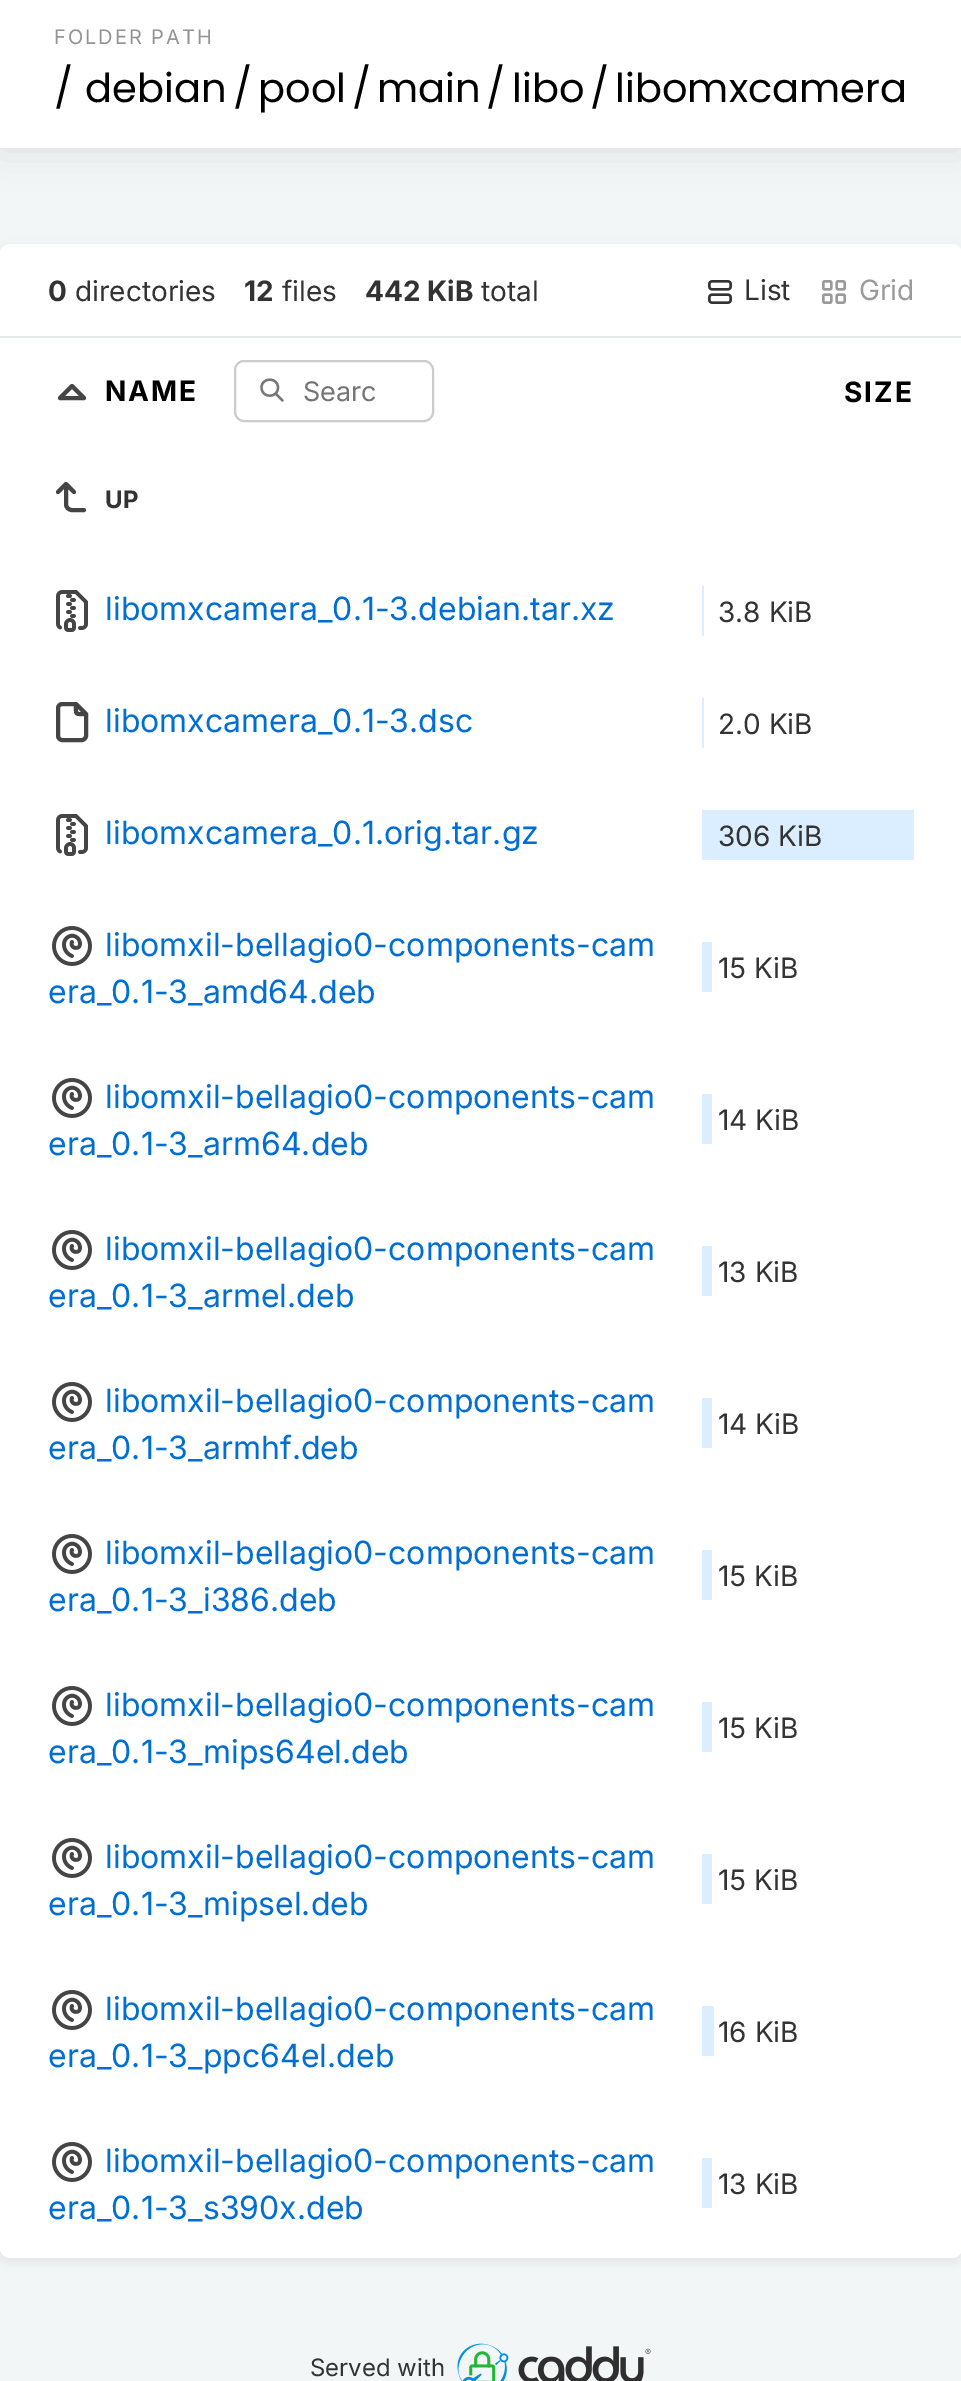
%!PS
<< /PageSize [961 2381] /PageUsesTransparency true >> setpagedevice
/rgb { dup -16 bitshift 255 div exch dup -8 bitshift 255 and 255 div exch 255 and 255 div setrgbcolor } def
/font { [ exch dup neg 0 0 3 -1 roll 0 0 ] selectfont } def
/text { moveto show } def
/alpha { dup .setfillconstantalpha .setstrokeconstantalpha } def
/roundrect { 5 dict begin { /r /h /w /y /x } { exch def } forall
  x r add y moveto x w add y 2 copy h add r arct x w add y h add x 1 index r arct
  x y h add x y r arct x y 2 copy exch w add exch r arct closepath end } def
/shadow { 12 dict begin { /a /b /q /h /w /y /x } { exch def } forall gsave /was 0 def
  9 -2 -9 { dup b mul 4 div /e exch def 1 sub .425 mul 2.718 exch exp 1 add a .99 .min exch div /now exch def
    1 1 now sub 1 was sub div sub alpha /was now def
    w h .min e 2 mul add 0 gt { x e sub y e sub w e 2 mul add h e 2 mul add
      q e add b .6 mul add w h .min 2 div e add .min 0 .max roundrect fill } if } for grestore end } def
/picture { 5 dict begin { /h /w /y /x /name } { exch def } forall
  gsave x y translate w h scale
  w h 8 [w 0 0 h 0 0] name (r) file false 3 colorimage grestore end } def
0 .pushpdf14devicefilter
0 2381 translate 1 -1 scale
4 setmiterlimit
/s1 { /Poppins-Regular 40 font 16#000000 rgb } def
/s2 { /Inter-Bold 28 font 16#333333 rgb } def
/s3 { /Inter-Regular 28 font 16#333333 rgb } def
/s4 { /Inter-Regular 28 font 16#9A9A9A rgb } def
/s5 { /Inter-Regular 27 font 16#757575 rgb } def
/s6 { /Inter-Bold 24 font 16#333333 rgb } def
/s7 { /Inter-Regular 32 font 16#006ED3 rgb } def
/s8 { /Inter-Regular 24 font 16#333333 rgb } def
16#F3F6F7 rgb
0 0 961 2381 rectfill
16#000000 rgb
0 -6 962 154 0 20 0.1 shadow
16#FFFFFF rgb
0 0 961 148 rectfill
/Inter-Regular 20 font
16#939393 rgb
54 44 moveto 2 0 (FOLDER PATH) ashow
s1
(/) 54 102 text
(debian) 85 102 text
(/) 233 102 text
(pool) 258 102 text
(/) 352 102 text
(main) 377 102 text
(/) 486 102 text
(libo) 512 102 text
(/) 590 102 text
(libomxcamera) 615 102 text
-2 246 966 2018 12 5 0.05 shadow
16#FFFFFF rgb
0 244 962 2014 10 roundrect fill
16#E5E9EA rgb
0 336 961 2 rectfill
s2
(0) 48 301 text
s3
(directories) 75 301 text
s2
(12) 244 301 text
s3
(files) 282 301 text
s2
(442 KiB) 365 301 text
s3
(total) 481 301 text
(pic1.raw) 708 280 24 24 picture
(List) 744 300 text
(pic2.raw) 822 280 24 24 picture
s4
(Grid) 859 300 text
16#454545 rgb
4 setlinewidth
1 setlinecap
1 setlinejoin
84 398 moveto 72 386 lineto 60 398 lineto 84 398 lineto stroke
/Inter-Bold 28 font
16#000000 rgb
105 401 moveto 2 0 (NAME) ashow
16#777777 rgb
2.3 setlinewidth
261.5 387.5 moveto 261.5 398.5 278 398.5 278 387.5 curveto 278 377 261.5 377 261.5 387.5 curveto 282.5 400.5 moveto 275.5 393.5 lineto stroke
16#CCCCCC rgb
2 setlinewidth
0 setlinecap
0 setlinejoin
235 361 198 60 9 roundrect stroke
s5
(Searc) 303 401 text
/Inter-Bold 28 font
16#000000 rgb
844 402 moveto 2 0 (SIZE) ashow
16#454545 rgb
4 setlinewidth
1 setlinecap
1 setlinejoin
84 510 moveto 72 510 lineto 68.5 510 66 507.5 66 504 curveto 66 484 lineto 58 492 lineto 74 492 moveto 66 484 lineto stroke
s6
(UP) 105 508 text
(pic3.raw) 56 590 32 42 picture
s7
(libomxcamera_0.1-3.debian.tar.xz) 105 620 text
16#DBEEFF rgb
702 586 2 50 rectfill
s3
(3.8 KiB) 718 622 text
16#454545 rgb
76 704 moveto 76 715.5 74.5 714 86 714 curveto 82 740 moveto 62 740 lineto 60 740 58 738 58 736 curveto 58 708 lineto 58 706 60 704 62 704 curveto 76 704 lineto 86 714 lineto 86 736 lineto 86 738 84 740 82 740 curveto closepath stroke
s7
(libomxcamera_0.1-3.dsc) 105 732 text
16#DBEEFF rgb
702 698 2 50 rectfill
s3
(2.0 KiB) 718 734 text
(pic3.raw) 56 814 32 42 picture
s7
(libomxcamera_0.1.orig.tar.gz) 105 844 text
16#DBEEFF rgb
702 810 212 50 rectfill
s3
(306 KiB) 718 846 text
(pic4.raw) 52 926 40 40 picture
s7
(libomxil-bellagio0-components-cam) 105 956 text
(era_0.1-3_amd64.deb) 48 1003 text
16#DBEEFF rgb
702 942 10 50 rectfill
s3
(15 KiB) 718 978 text
(pic4.raw) 52 1078 40 40 picture
s7
(libomxil-bellagio0-components-cam) 105 1108 text
(era_0.1-3_arm64.deb) 48 1155 text
16#DBEEFF rgb
702 1094 10 50 rectfill
s3
(14 KiB) 718 1130 text
(pic4.raw) 52 1230 40 40 picture
s7
(libomxil-bellagio0-components-cam) 105 1260 text
(era_0.1-3_armel.deb) 48 1307 text
16#DBEEFF rgb
702 1246 10 50 rectfill
s3
(13 KiB) 718 1282 text
(pic4.raw) 52 1382 40 40 picture
s7
(libomxil-bellagio0-components-cam) 105 1412 text
(era_0.1-3_armhf.deb) 48 1459 text
16#DBEEFF rgb
702 1398 10 50 rectfill
s3
(14 KiB) 718 1434 text
(pic4.raw) 52 1534 40 40 picture
s7
(libomxil-bellagio0-components-cam) 105 1564 text
(era_0.1-3_i386.deb) 48 1611 text
16#DBEEFF rgb
702 1550 10 50 rectfill
s3
(15 KiB) 718 1586 text
(pic4.raw) 52 1686 40 40 picture
s7
(libomxil-bellagio0-components-cam) 105 1716 text
(era_0.1-3_mips64el.deb) 48 1763 text
16#DBEEFF rgb
702 1702 10 50 rectfill
s3
(15 KiB) 718 1738 text
(pic4.raw) 52 1838 40 40 picture
s7
(libomxil-bellagio0-components-cam) 105 1868 text
(era_0.1-3_mipsel.deb) 48 1915 text
16#DBEEFF rgb
702 1854 10 50 rectfill
s3
(15 KiB) 718 1890 text
(pic4.raw) 52 1990 40 40 picture
s7
(libomxil-bellagio0-components-cam) 105 2020 text
(era_0.1-3_ppc64el.deb) 48 2067 text
16#DBEEFF rgb
702 2006 12 50 rectfill
s3
(16 KiB) 718 2042 text
(pic4.raw) 52 2142 40 40 picture
s7
(libomxil-bellagio0-components-cam) 105 2172 text
(era_0.1-3_s390x.deb) 48 2219 text
16#DBEEFF rgb
702 2158 10 50 rectfill
s3
(13 KiB) 718 2194 text
s8
(Served with) 310 2376 text
(pic5.raw) 457 2343 194 38 picture
.poppdf14devicefilter showpage
